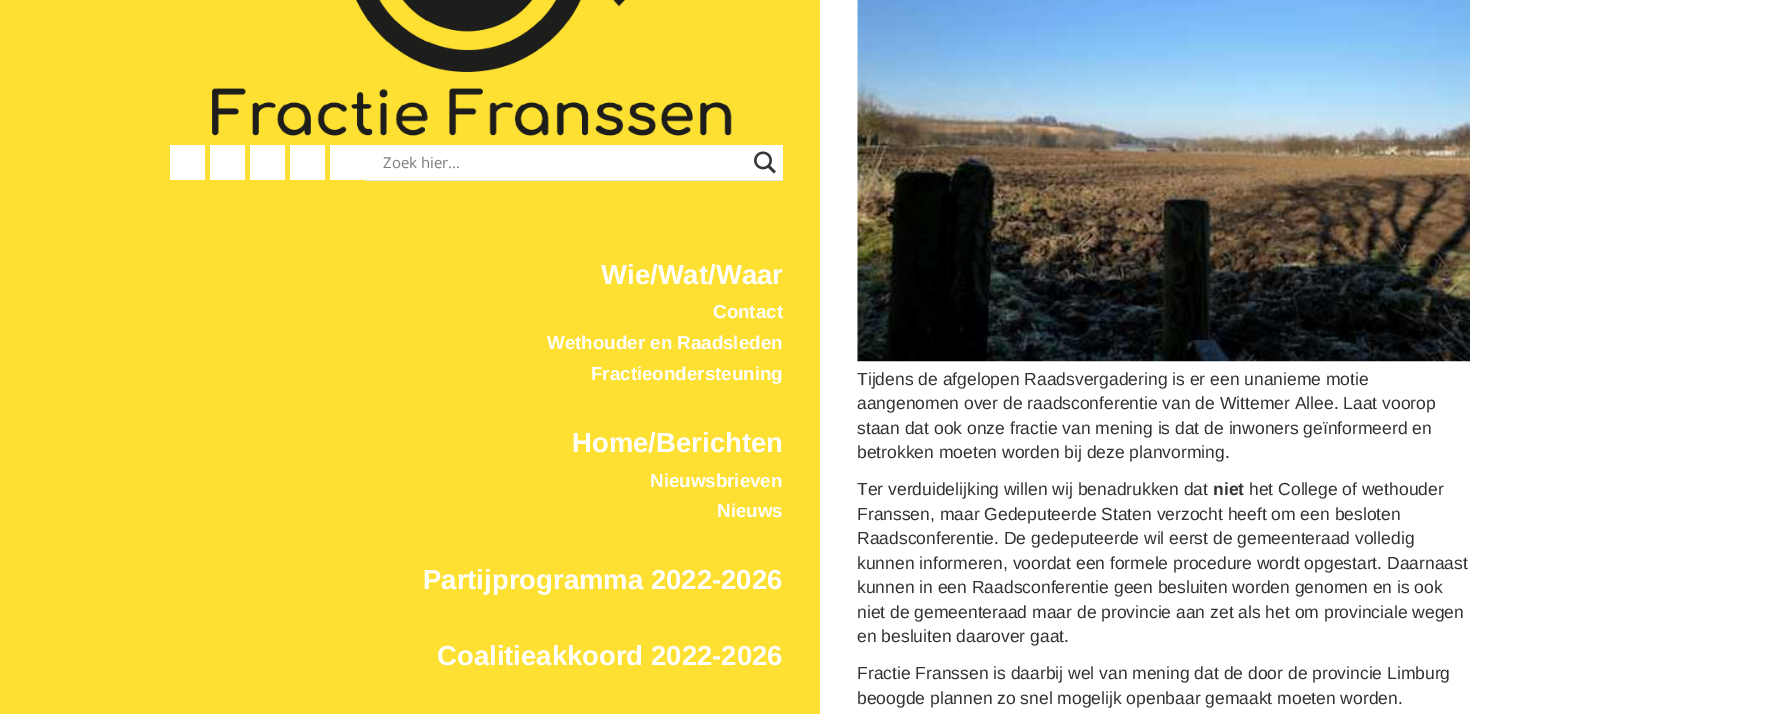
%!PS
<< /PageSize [1782 714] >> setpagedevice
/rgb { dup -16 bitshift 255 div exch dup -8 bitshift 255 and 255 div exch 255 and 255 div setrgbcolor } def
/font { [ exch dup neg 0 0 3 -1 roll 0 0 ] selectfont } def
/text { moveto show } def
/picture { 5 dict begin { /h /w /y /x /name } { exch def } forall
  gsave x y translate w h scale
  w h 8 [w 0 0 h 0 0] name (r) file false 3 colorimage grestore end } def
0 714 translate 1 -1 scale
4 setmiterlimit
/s1 { /OpenSans-Regular 15 font 16#7D7D7D rgb } def
/s2 { /LiberationSans-Bold 27.5 font 16#FFFFFF rgb } def
/s3 { /LiberationSans-Bold 18.75 font 16#FFFFFF rgb } def
/s4 { /LiberationSans-Regular 17.5 font 16#323232 rgb } def
/s5 { /LiberationSans-Bold 17.5 font 16#323232 rgb } def
16#FFFFFF rgb
0 0 1782 714 rectfill
16#FEE033 rgb
0 0 820 714 rectfill
(pic1.raw) 212 0 520 136 picture
16#FFFFFF rgb
170 145 35 35 rectfill
210 145 35 35 rectfill
250 145 35 35 rectfill
290 145 35 35 rectfill
330 145 35 35 rectfill
16#E4E4E4 rgb
365 180 moveto 365 181 lineto 783 181 lineto 783 146 lineto 782 146 lineto 782 180 lineto closepath fill
16#FFFFFF rgb
365 145 418 35 rectfill
s1
(Zoek hier...) 383 168 text
(pic2.raw) 754 151 22 23 picture
s2
(Wie/Wat/Waar) 601 284 text
s3
(Contact) 713 318 text
(Wethouder en Raadsleden) 547 349 text
(Fractieondersteuning) 591 380 text
s2
(Home/Berichten) 572 452 text
s3
(Nieuwsbrieven) 650 487 text
(Nieuws) 717 517 text
s2
(Partijprogramma 2022-2026) 423 589 text
(Coalitieakkoord 2022-2026) 437 665 text
(pic3.raw) 857 0 613 362 picture
s4
(Tijdens de afgelopen Raadsvergadering is er een unanieme motie) 857 385 text
(aangenomen over de raadsconferentie van de Wittemer Allee. Laat voorop) 857 409 text
(staan dat ook onze fractie van mening is dat de inwoners geïnformeerd en) 857 434 text
(betrokken moeten worden bij deze planvorming.) 857 458 text
(Ter verduidelijking willen wij benadrukken dat) 857 495 text
s5
(niet) 1213 495 text
s4
(het College of wethouder) 1249 495 text
(Franssen, maar Gedeputeerde Staten verzocht heeft om een besloten) 857 520 text
(Raadsconferentie. De gedeputeerde wil eerst de gemeenteraad volledig) 857 544 text
(kunnen informeren, voordat een formele procedure wordt opgestart. Daarnaast) 857 569 text
(kunnen in een Raadsconferentie geen besluiten worden genomen en is ook) 857 593 text
(niet de gemeenteraad maar de provincie aan zet als het om provinciale wegen) 857 618 text
(en besluiten daarover gaat.) 857 642 text
(Fractie Franssen is daarbij wel van mening dat de door de provincie Limburg) 857 679 text
(beoogde plannen zo snel mogelijk openbaar gemaakt moeten worden.) 857 704 text
showpage
